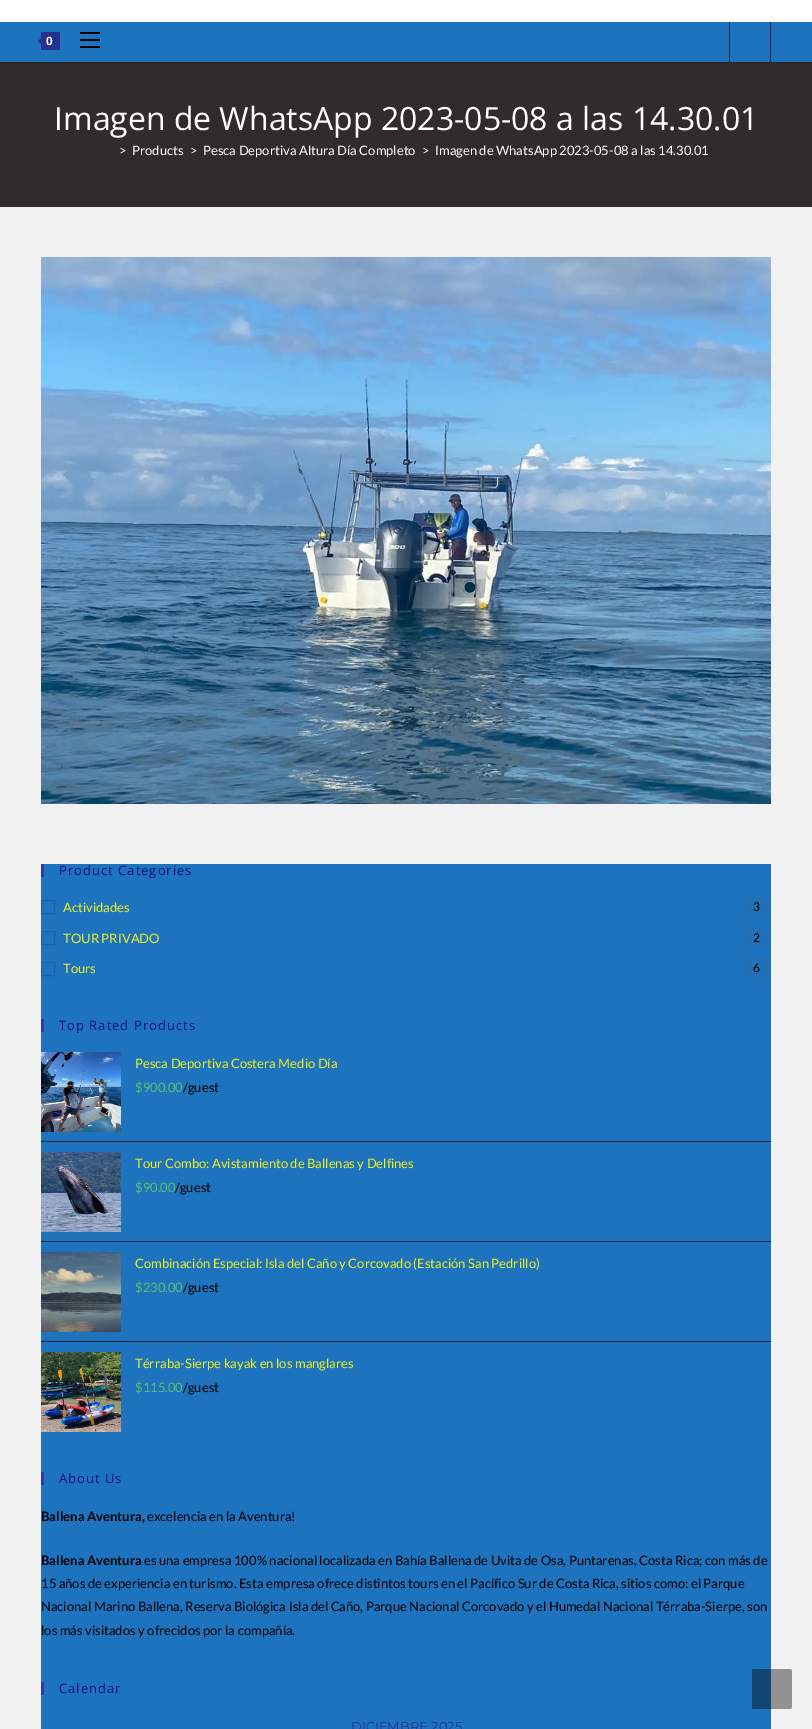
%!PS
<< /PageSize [812 1729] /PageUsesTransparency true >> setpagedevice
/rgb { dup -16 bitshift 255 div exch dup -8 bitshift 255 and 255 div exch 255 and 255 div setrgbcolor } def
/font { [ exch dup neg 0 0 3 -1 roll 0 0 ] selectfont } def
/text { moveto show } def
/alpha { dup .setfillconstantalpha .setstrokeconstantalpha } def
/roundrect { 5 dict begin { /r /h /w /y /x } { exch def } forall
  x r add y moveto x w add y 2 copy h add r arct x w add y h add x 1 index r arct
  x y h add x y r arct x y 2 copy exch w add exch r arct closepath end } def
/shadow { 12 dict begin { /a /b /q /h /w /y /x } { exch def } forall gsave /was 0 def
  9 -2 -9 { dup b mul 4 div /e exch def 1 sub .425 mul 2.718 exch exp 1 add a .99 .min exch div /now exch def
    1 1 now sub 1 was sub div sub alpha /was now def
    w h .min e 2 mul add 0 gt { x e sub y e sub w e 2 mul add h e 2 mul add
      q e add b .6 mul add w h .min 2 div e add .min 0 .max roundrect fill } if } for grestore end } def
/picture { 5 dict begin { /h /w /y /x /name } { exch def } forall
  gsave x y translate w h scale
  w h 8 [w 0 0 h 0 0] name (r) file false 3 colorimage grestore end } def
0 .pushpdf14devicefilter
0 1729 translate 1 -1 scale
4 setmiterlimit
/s1 { /OpenSans-Regular 32 font 16#FFFFFF rgb } def
/s2 { /Lato-Regular 13 font 16#EFEFEF rgb } def
/s3 { /Lato-Regular 13 font 16#FFFFFF rgb } def
/s4 { /Lato-Regular 13 font 16#EEEE22 rgb } def
/s5 { /Lato-Regular 12 font 16#000000 rgb } def
/s6 { /Lato-Regular 13 font 16#57BF6D rgb } def
/s7 { /Lato-Regular 13 font 16#000000 rgb } def
/s8 { /Lato-Bold 13 font 16#000000 rgb } def
/s9 { /Montserrat-Regular 13 font 16#243191 rgb } def
16#F1F1F1 rgb
0 0 812 1729 rectfill
16#FFFFFF rgb
0 0 812 22 rectfill
16#322B2B rgb
0 62 812 145 rectfill
16#000000 rgb
0 23 812 40 0 2.5 0.1 shadow
16#1E73BE rgb
0 22 812 40 rectfill
16#243191 rgb
41 32 19 18 2 roundrect fill
43 36 moveto 43 46 lineto 38 41 lineto closepath fill
/LiberationSans-Bold 12 font
16#FFFFFF rgb
46 45 moveto 2 0 (0) ashow
16#000000 rgb
80 46 20 2 1 roundrect fill
80 32 20 2 1 roundrect fill
80 39 20 2 1 roundrect fill
16#10263A rgb
770 22 1 40 rectfill
729 22 1 40 rectfill
s1
(Imagen de WhatsApp 2023-05-08 a las 14.30.01) 54 130 text
s2
(>) 119 155 text
s3
(Products) 132 155 text
s2
(>) 190 155 text
s3
(Pesca Deportiva Altura Día Completo) 203 155 text
s2
(>) 422 155 text
s3
(Imagen de WhatsApp 2023-05-08 a las 14.30.01) 435 155 text
(pic1.raw) 41 257 730 547 picture
16#1E73BE rgb
41 864 730 865 rectfill
16#2E38B3 rgb
41 864 3 13 rectfill
/OpenSans-Regular 13 font
16#101083 rgb
59 875 moveto 1 0 (Product Categories) ashow
16#1A62A2 rgb
41.5 900.5 13 13 rectstroke
s4
(Actividades) 63 912 text
16#2171B9 rgb
742 897 29 20 10 roundrect fill
s5
(3) 753 911 text
16#1A62A2 rgb
41.5 931.5 13 13 rectstroke
s4
(TOUR PRIVADO) 63 943 text
16#2171B9 rgb
742 928 29 20 10 roundrect fill
s5
(2) 753 942 text
16#1A62A2 rgb
41.5 962.5 13 13 rectstroke
s4
(Tours) 63 973 text
16#2171B9 rgb
742 958 29 20 10 roundrect fill
s5
(6) 753 972 text
16#2E38B3 rgb
41 1019 3 13 rectfill
/OpenSans-Regular 13 font
16#101083 rgb
59 1030 moveto 1 0 (Top Rated Products) ashow
16#10263A rgb
41 1141 730 1 rectfill
(pic2.raw) 41 1052 80 80 picture
s4
(Pesca Deportiva Costera Medio Día) 135 1068 text
s6
($900.00) 135 1092 text
s7
(/guest) 183 1092 text
16#10263A rgb
41 1241 730 1 rectfill
(pic3.raw) 41 1152 80 80 picture
s4
(Tour Combo: Avistamiento de Ballenas y Delfines) 135 1168 text
s6
($90.00) 135 1192 text
s7
(/guest) 175 1192 text
16#10263A rgb
41 1341 730 1 rectfill
(pic4.raw) 41 1252 80 80 picture
s4
(Combinación Especial: Isla del Caño y Corcovado \(Estación San Pedrillo\)) 135 1268 text
s6
($230.00) 135 1292 text
s7
(/guest) 183 1292 text
(pic5.raw) 41 1352 80 80 picture
s4
(Térraba-Sierpe kayak en los manglares) 135 1368 text
s6
($115.00) 135 1392 text
s7
(/guest) 183 1392 text
16#2E38B3 rgb
41 1472 3 13 rectfill
/OpenSans-Regular 13 font
16#101083 rgb
59 1483 moveto 1 0 (About Us) ashow
s8
(Ballena Aventura,) 41 1521 text
s7
(excelencia en la Aventura!) 147 1521 text
s8
(Ballena Aventura) 41 1565 text
s7
(es una empresa 100% nacional localizada en Bahía Ballena de Uvita de Osa, Puntarenas, Costa Rica; con más de) 144 1565 text
(15 años de experiencia en turismo. Esta empresa ofrece distintos tours en el Pacífico Sur de Costa Rica, sitios como: el Parque) 41 1588 text
(Nacional Marino Ballena, Reserva Biológica Isla del Caño, Parque Nacional Corcovado y el Humedal Nacional Térraba-Sierpe, son) 41 1611 text
(los más visitados y ofrecidos por la compañía.) 41 1635 text
16#2E38B3 rgb
41 1682 3 13 rectfill
/OpenSans-Regular 13 font
16#101083 rgb
59 1693 moveto 1 0 (Calendar) ashow
s9
(DICIEMBRE 2025) 351 1731 text
0.4 alpha
16#000000 rgb
752 1669 40 40 2 roundrect fill
.poppdf14devicefilter showpage
